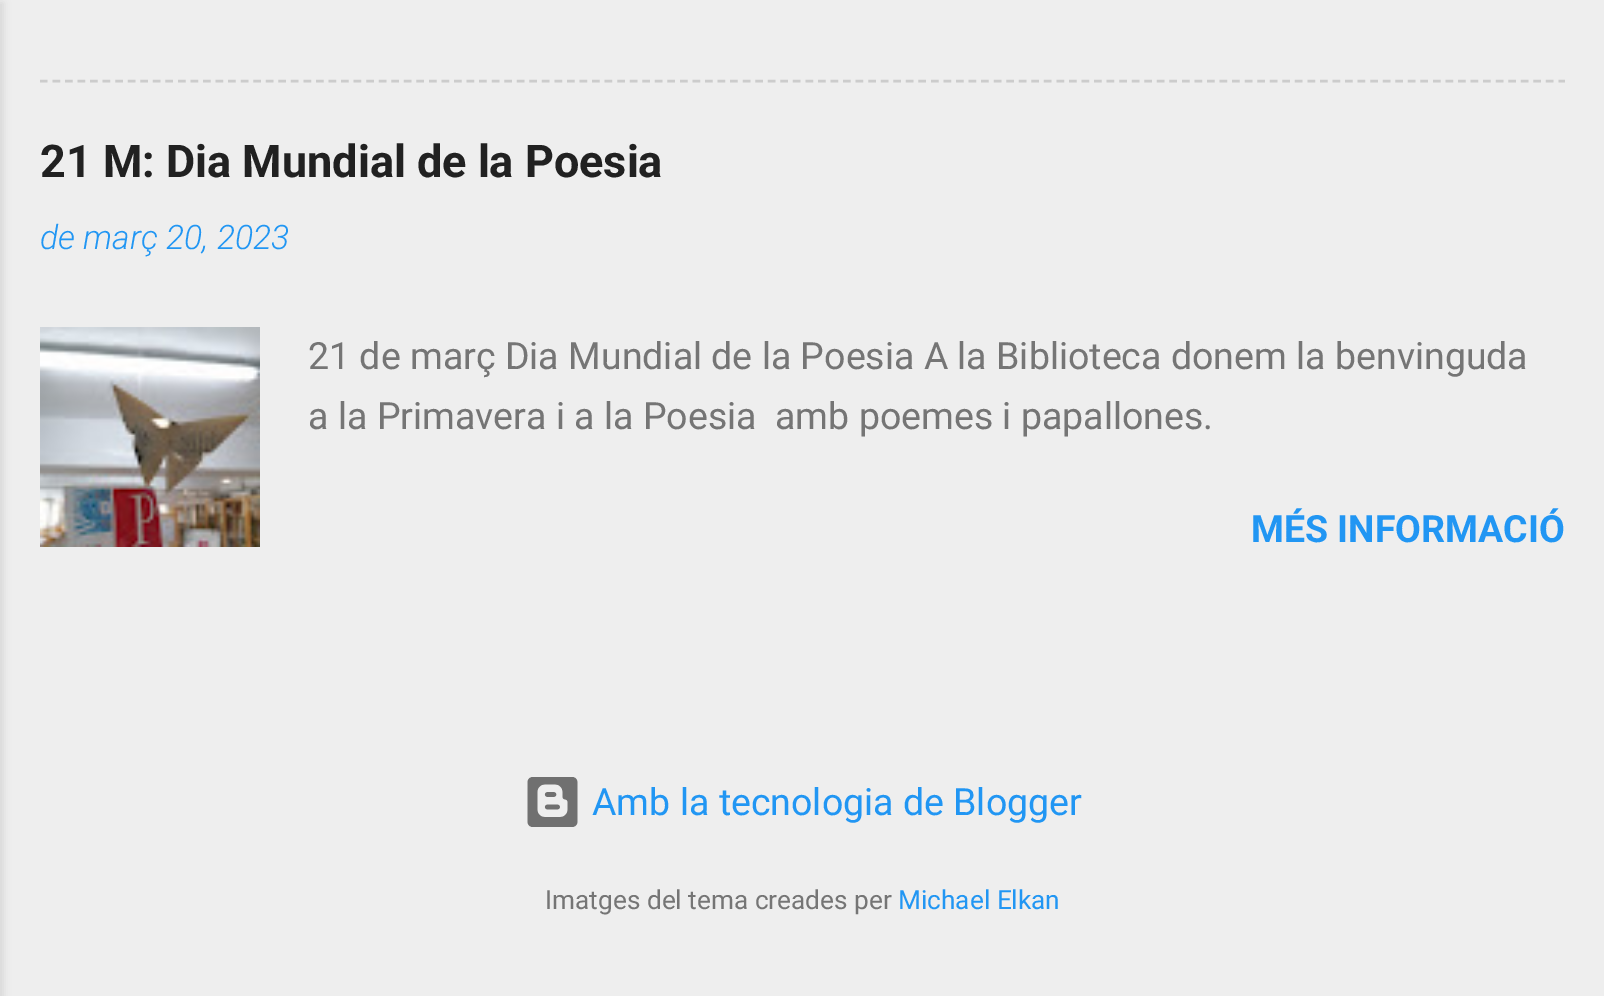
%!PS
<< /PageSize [1604 996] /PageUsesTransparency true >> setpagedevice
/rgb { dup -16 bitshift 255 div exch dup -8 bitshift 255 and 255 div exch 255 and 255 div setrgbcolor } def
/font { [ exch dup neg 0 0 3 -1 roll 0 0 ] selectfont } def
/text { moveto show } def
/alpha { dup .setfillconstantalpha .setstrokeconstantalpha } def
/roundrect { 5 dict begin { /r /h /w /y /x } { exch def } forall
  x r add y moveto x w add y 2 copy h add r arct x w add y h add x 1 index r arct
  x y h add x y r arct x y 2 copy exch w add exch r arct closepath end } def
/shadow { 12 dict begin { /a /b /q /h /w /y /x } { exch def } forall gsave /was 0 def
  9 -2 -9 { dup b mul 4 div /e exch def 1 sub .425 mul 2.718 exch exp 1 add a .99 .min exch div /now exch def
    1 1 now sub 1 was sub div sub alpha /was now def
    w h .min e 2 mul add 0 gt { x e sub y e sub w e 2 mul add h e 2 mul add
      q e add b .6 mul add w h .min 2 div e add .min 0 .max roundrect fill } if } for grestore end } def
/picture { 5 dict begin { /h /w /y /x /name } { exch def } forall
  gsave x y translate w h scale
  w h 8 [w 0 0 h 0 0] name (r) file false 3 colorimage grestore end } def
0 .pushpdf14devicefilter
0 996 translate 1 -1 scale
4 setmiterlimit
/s1 { /Roboto-Bold 45 font 16#212121 rgb } def
/s2 { /Roboto-LightItalic 33.75 font 16#2196F3 rgb } def
/s3 { /Roboto-Regular 37.5 font 16#757575 rgb } def
/s4 { /Roboto-Bold 37.5 font 16#2196F3 rgb } def
/s5 { /Roboto-Regular 37.5 font 16#2196F3 rgb } def
/s6 { /Roboto-Regular 26.25 font 16#757575 rgb } def
/s7 { /Roboto-Regular 26.25 font 16#2196F3 rgb } def
16#EEEEEE rgb
0 0 1604 996 rectfill
16#000000 rgb
-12 3 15 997 0 4 0.1 shadow
16#CCCCCC rgb
2.5 setlinewidth
[7.5 5.05] 0 setdash
40 81 moveto 1565 81 lineto stroke
s1
(21 M: Dia Mundial de la Poesia) 40 177 text
s2
(de març 20, 2023) 40 249 text
(pic1.raw) 40 327 220 220 picture
s3
(21 de març Dia Mundial de la Poesia A la Biblioteca donem la benvinguda) 308 369 text
(a la Primavera i a la Poesia  amb poemes i papallones.) 308 429 text
s4
(MÉS INFORMACIÓ) 1251 542 text
(pic2.raw) 527 777 51 50 picture
s5
(Amb la tecnologia de Blogger) 592 815 text
s6
(Imatges del tema creades per) 545 909 text
s7
(Michael Elkan) 898 909 text
.poppdf14devicefilter showpage
